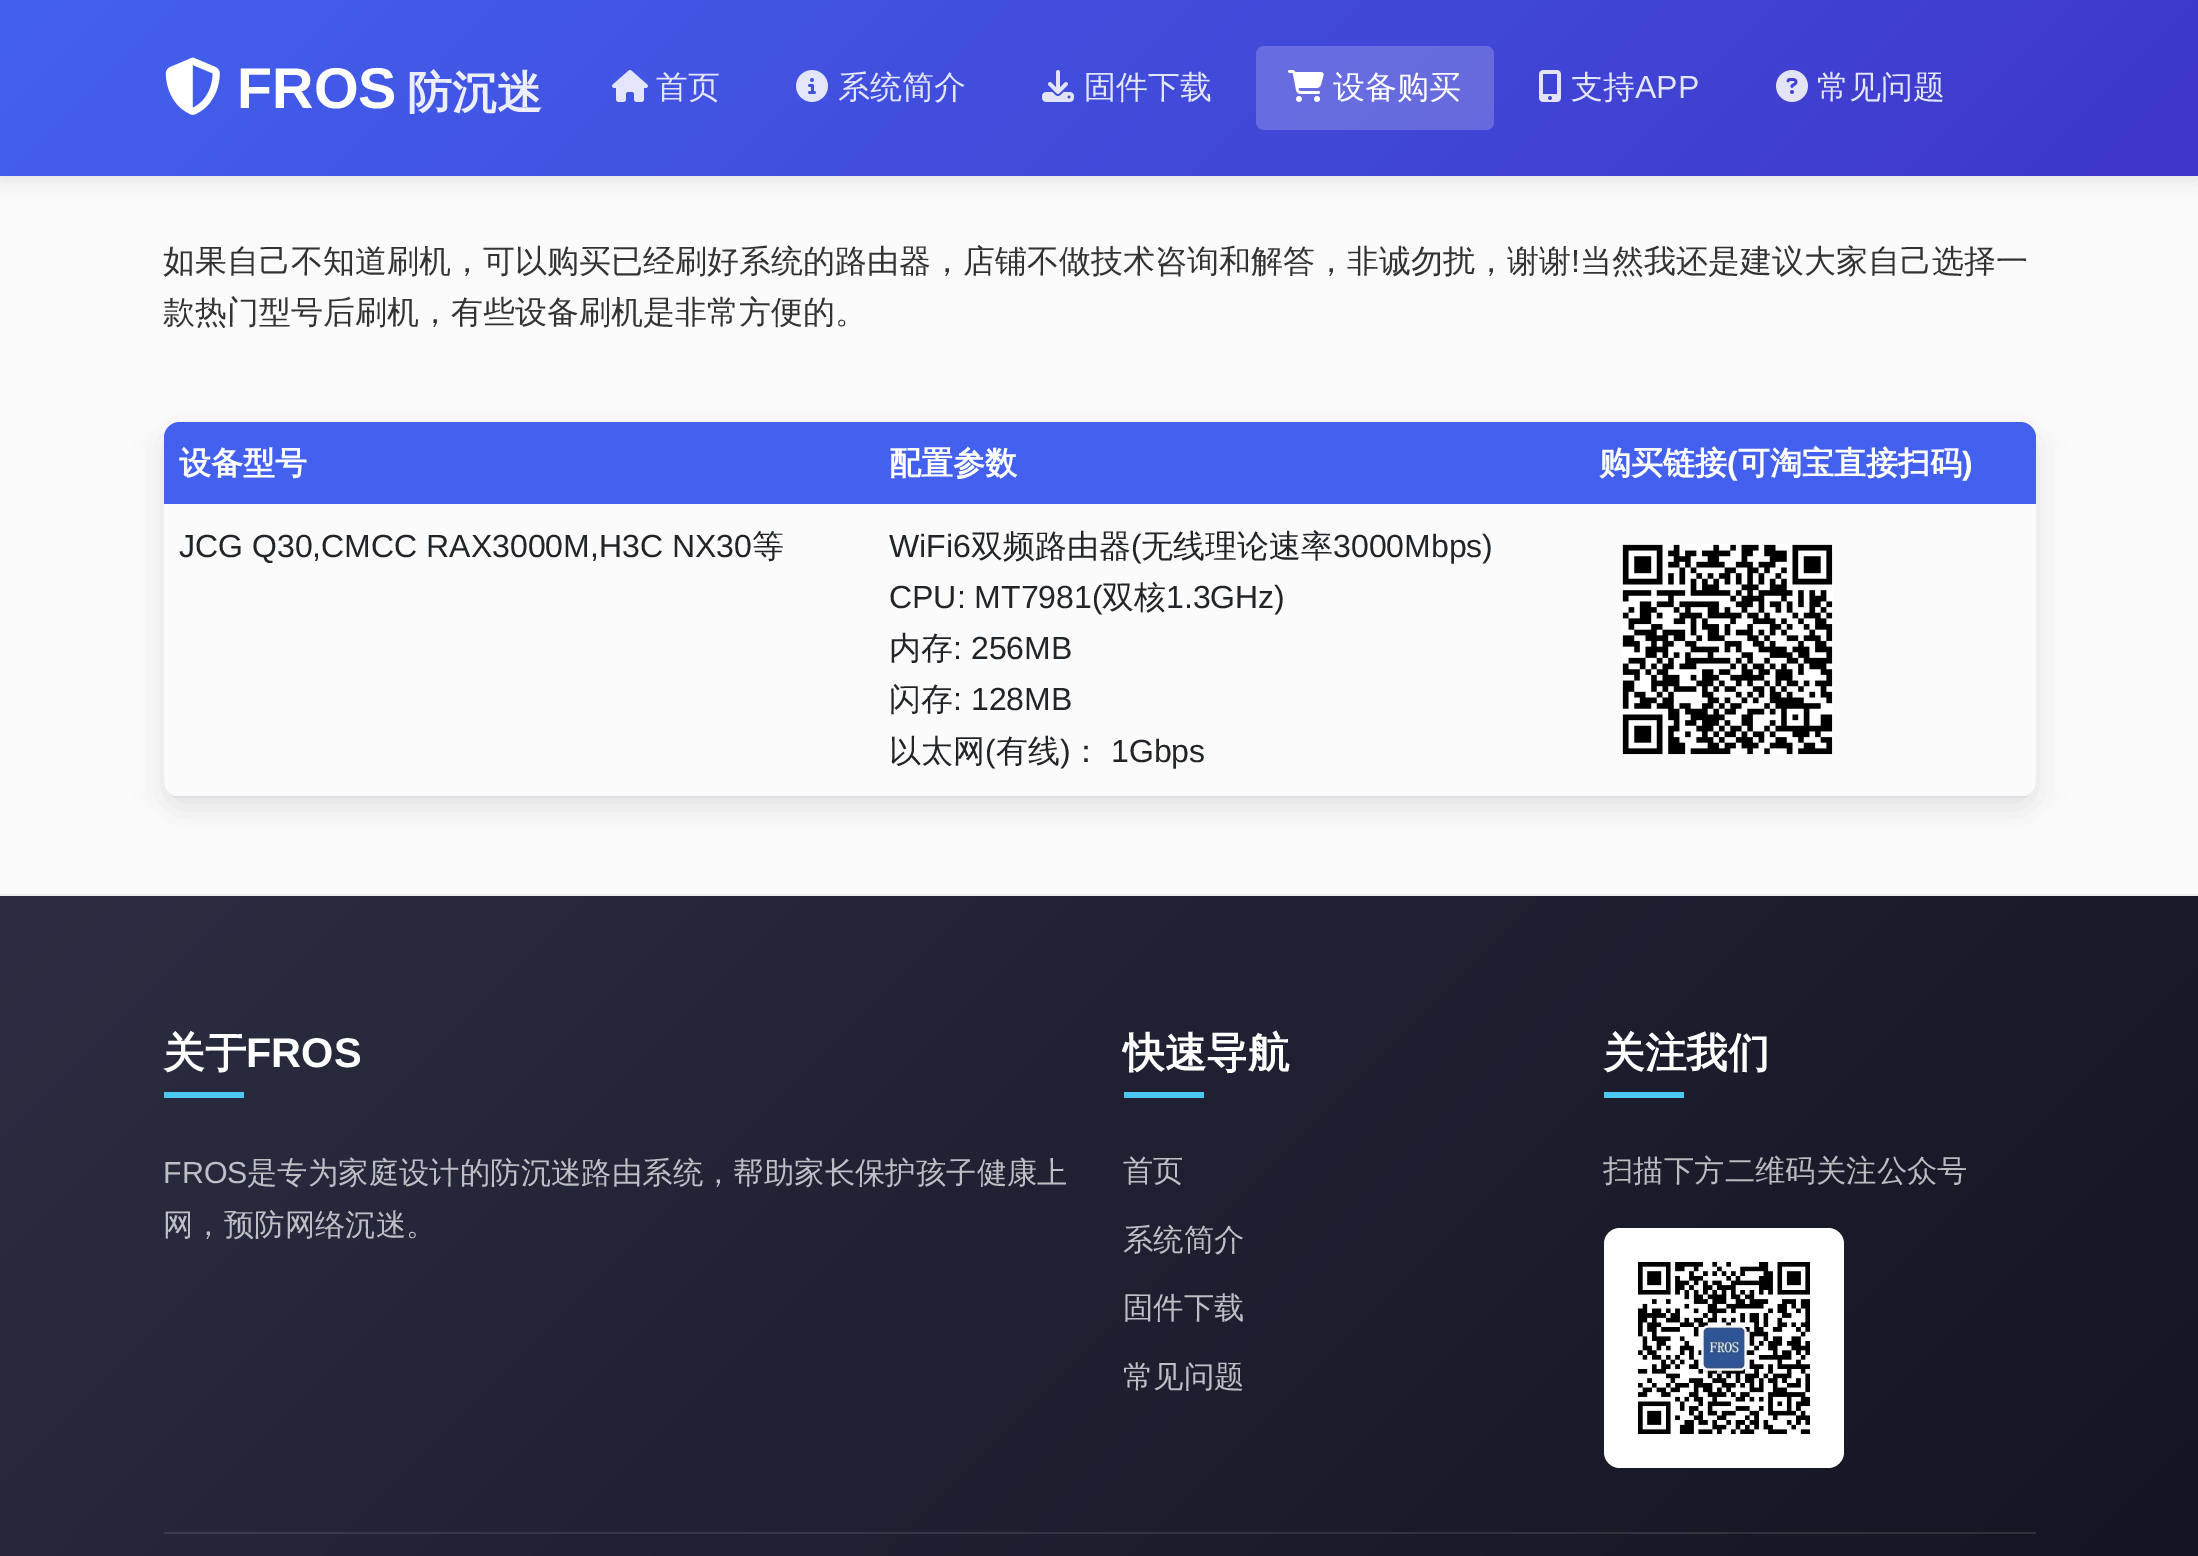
%!PS
<< /PageSize [2198 1556] /PageUsesTransparency true >> setpagedevice
/rgb { dup -16 bitshift 255 div exch dup -8 bitshift 255 and 255 div exch 255 and 255 div setrgbcolor } def
/font { [ exch dup neg 0 0 3 -1 roll 0 0 ] selectfont } def
/text { moveto show } def
/alpha { dup .setfillconstantalpha .setstrokeconstantalpha } def
/roundrect { 5 dict begin { /r /h /w /y /x } { exch def } forall
  x r add y moveto x w add y 2 copy h add r arct x w add y h add x 1 index r arct
  x y h add x y r arct x y 2 copy exch w add exch r arct closepath end } def
/shadow { 12 dict begin { /a /b /q /h /w /y /x } { exch def } forall gsave /was 0 def
  9 -2 -9 { dup b mul 4 div /e exch def 1 sub .425 mul 2.718 exch exp 1 add a .99 .min exch div /now exch def
    1 1 now sub 1 was sub div sub alpha /was now def
    w h .min e 2 mul add 0 gt { x e sub y e sub w e 2 mul add h e 2 mul add
      q e add b .6 mul add w h .min 2 div e add .min 0 .max roundrect fill } if } for grestore end } def
/picture { 5 dict begin { /h /w /y /x /name } { exch def } forall
  gsave x y translate w h scale
  w h 8 [w 0 0 h 0 0] name (r) file false 3 colorimage grestore end } def
0 .pushpdf14devicefilter
0 1556 translate 1 -1 scale
4 setmiterlimit
/s1 { /LiberationSans-Bold 57.5 font 16#FFFFFF rgb } def
/s2 { /WenQuanYiZenHei-Bold 45 font 16#ECEEFC rgb } def
/s3 { /WenQuanYiZenHei-Medium 32 font 16#E3E5FB rgb } def
/s4 { /WenQuanYiZenHei-Medium 32 font 16#FFFFFF rgb } def
/s5 { /LiberationSans-Regular 32 font 16#E3E5FB rgb } def
/s6 { /WenQuanYiZenHei-Medium 32 font 16#333333 rgb } def
/s7 { /LiberationSans-Regular 32 font 16#333333 rgb } def
/s8 { /WenQuanYiZenHei-Bold 32 font 16#FFFFFF rgb } def
/s9 { /LiberationSans-Bold 32 font 16#FFFFFF rgb } def
/s10 { /LiberationSans-Regular 32 font 16#212529 rgb } def
/s11 { /WenQuanYiZenHei-Medium 32 font 16#212529 rgb } def
/s12 { /WenQuanYiZenHei-Bold 41.5 font 16#FFFFFF rgb } def
/s13 { /LiberationSans-Bold 41.5 font 16#FFFFFF rgb } def
/s14 { /LiberationSans-Regular 30.4 font 16#BEBFC5 rgb } def
/s15 { /WenQuanYiZenHei-Medium 30.4 font 16#BEBFC5 rgb } def
/s16 { /WenQuanYiZenHei-Medium 30.4 font 16#BABBBF rgb } def
16#FBFBFB rgb
0 0 2198 1556 rectfill
16#000000 rgb
0 4 2198 176 0 10 0.1 shadow
gsave 0 0 moveto 2198 0 lineto 2198 176 lineto 0 176 lineto closepath clip newpath
<< /ShadingType 2 /ColorSpace /DeviceRGB /Coords [505 -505 1693 682] /Extend [true true] /Function << /FunctionType 2 /Domain [0 1] /C0 [0.263 0.38 0.933] /C1 [0.247 0.216 0.788] /N 1 >> >> shfill grestore
(pic1.raw) 165 57 55 58 picture
s1
(FROS) 237 108 text
s2
(防沉迷) 407 108 text
(pic2.raw) 612 70 36 32 picture
s3
(首页) 656 98 text
(pic3.raw) 796 70 32 32 picture
(系统简介) 838 98 text
(pic4.raw) 1042 70 32 32 picture
(固件下载) 1084 98 text
0.2 alpha
16#FFFFFF rgb
1256 46 238 84 8 roundrect fill
1 alpha
(pic5.raw) 1288 70 36 32 picture
(设备购买) 1333 98 text
(pic6.raw) 1539 70 22 32 picture
s3
(支持) 1571 98 text
s5
(APP) 1635 98 text
(pic7.raw) 1776 70 32 32 picture
s3
(常见问题) 1817 98 text
s6
(如果自己不知道刷机，可以购买已经刷好系统的路由器，店铺不做技术咨询和解答，非诚勿扰，谢谢) 163 272 text
s7
(!) 1571 272 text
s6
(当然我还是建议大家自己选择一) 1580 272 text
(款热门型号后刷机，有些设备刷机是非常方便的。) 163 323 text
gsave
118 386 moveto 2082 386 lineto 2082 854 lineto 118 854 lineto closepath 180 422 moveto 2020 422 lineto 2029 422 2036 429 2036 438 curveto 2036 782 lineto 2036 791 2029 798 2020 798 curveto 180 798 lineto 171 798 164 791 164 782 curveto 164 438 lineto 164 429 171 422 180 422 curveto closepath eoclip newpath
16#000000 rgb
164 432 1872 376 16 15 0.1 shadow
grestore
16#4361EE rgb
180 422 moveto 874 422 lineto 874 504 lineto 164 504 lineto 164 438 lineto 164 429 171 422 180 422 curveto closepath fill
s8
(设备型号) 179 474 text
16#4361EE rgb
874 422 708 82 rectfill
s8
(配置参数) 889 474 text
16#4361EE rgb
1582 422 moveto 2020 422 lineto 2029 422 2036 429 2036 438 curveto 2036 504 lineto 1582 504 lineto closepath fill
s8
(购买链接) 1599 474 text
s9
(\() 1727 474 text
s8
(可淘宝直接扫码) 1738 474 text
s9
(\)) 1962 474 text
gsave
164 422 1872 376 16 roundrect clip newpath
16#DEE2E6 rgb
1582 796 454 2 rectfill
grestore
16#DEE2E6 rgb
872 796 712 2 rectfill
gsave
164 422 1872 376 16 roundrect clip newpath
164 796 710 2 rectfill
grestore
s10
(JCG Q30,CMCC RAX3000M,H3C NX30) 179 557 text
s11
(等) 752 557 text
s10
(WiFi6) 889 557 text
s11
(双频路由器) 971 557 text
s10
(\() 1131 557 text
s11
(无线理论速率) 1141 557 text
s10
(3000Mbps\)) 1333 557 text
(CPU: MT7981\() 889 608 text
s11
(双核) 1102 608 text
s10
(1.3GHz\)) 1166 608 text
s11
(内存) 889 659 text
s10
(: 256MB) 953 659 text
s11
(闪存) 889 710 text
s10
(: 128MB) 953 710 text
s11
(以太网) 889 762 text
s10
(\() 985 762 text
s11
(有线) 996 762 text
s10
(\)) 1060 762 text
s11
(：) 1070 762 text
s10
(1Gbps) 1111 762 text
(pic8.raw) 1622 544 211 211 picture
gsave 0 896 moveto 2198 896 lineto 2198 1556 lineto 0 1556 lineto closepath clip newpath
<< /ShadingType 2 /ColorSpace /DeviceRGB /Coords [346 550 1852 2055] /Extend [true true] /Function << /FunctionType 2 /Domain [0 1] /C0 [0.169 0.176 0.259] /C1 [0.071 0.078 0.125] /N 1 >> >> shfill grestore
gsave 164 1532 moveto 2036 1532 lineto 2036 1534 lineto 164 1534 lineto closepath clip newpath
<< /ShadingType 2 /ColorSpace /DeviceRGB /Coords [346 550 1852 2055] /Extend [true true] /Function << /FunctionType 2 /Domain [0 1] /C0 [0.251 0.259 0.333] /C1 [0.165 0.173 0.212] /N 1 >> >> shfill grestore
16#EEEEEE rgb
0 894 2198 2 rectfill
s12
(关于) 163 1067 text
s13
(FROS) 246 1067 text
16#4CC9F0 rgb
164 1092 80 6 rectfill
s14
(FROS) 163 1183 text
s15
(是专为家庭设计的防沉迷路由系统，帮助家长保护孩子健康上) 247 1183 text
(网，预防网络沉迷。) 163 1235 text
s12
(快速导航) 1123 1067 text
16#4CC9F0 rgb
1124 1092 80 6 rectfill
s15
(首页) 1123 1181 text
(系统简介) 1123 1250 text
(固件下载) 1123 1318 text
(常见问题) 1123 1387 text
s12
(关注我们) 1603 1067 text
16#4CC9F0 rgb
1604 1092 80 6 rectfill
s16
(扫描下方二维码关注公众号) 1603 1181 text
16#FFFFFF rgb
1604 1228 240 240 16 roundrect fill
(pic9.raw) 1636 1260 174 174 picture
.poppdf14devicefilter showpage
